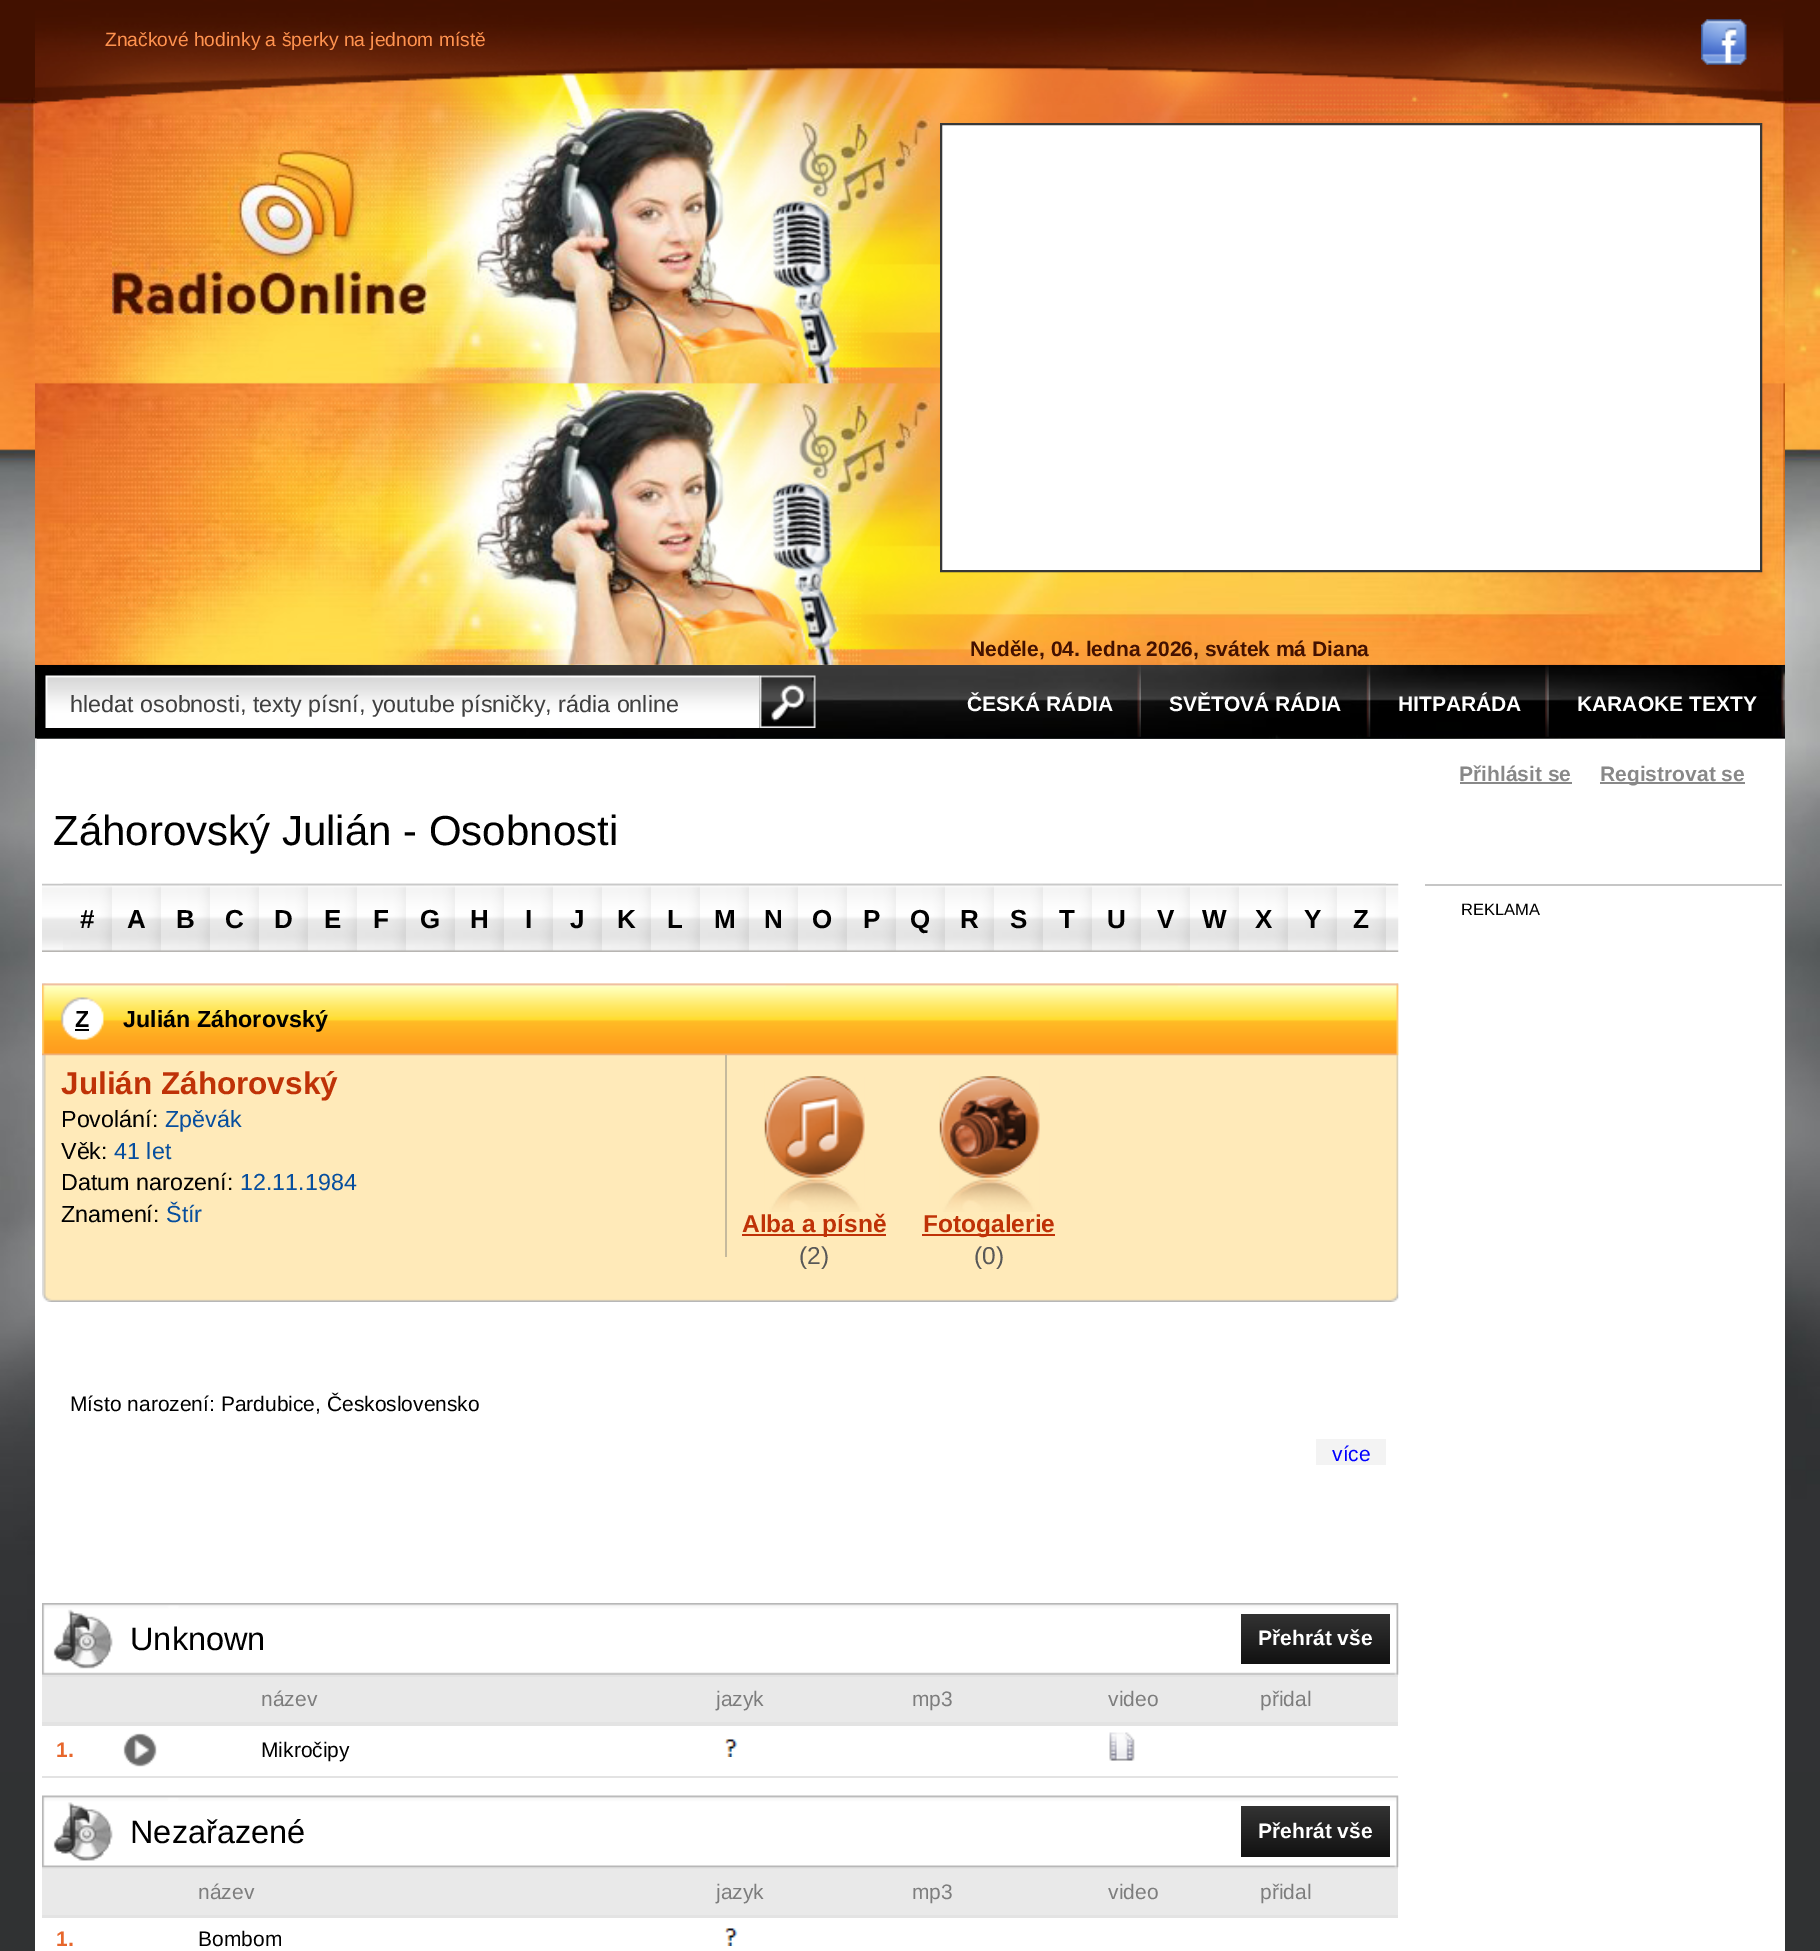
%!PS
<< /PageSize [1820 1951] >> setpagedevice
/rgb { dup -16 bitshift 255 div exch dup -8 bitshift 255 and 255 div exch 255 and 255 div setrgbcolor } def
/font { [ exch dup neg 0 0 3 -1 roll 0 0 ] selectfont } def
/text { moveto show } def
/picture { 5 dict begin { /h /w /y /x /name } { exch def } forall
  gsave x y translate w h scale
  w h 8 [w 0 0 h 0 0] name (r) file false 3 colorimage grestore end } def
0 1951 translate 1 -1 scale
4 setmiterlimit
/s1 { /LiberationSans-Regular 19.25 font 16#FF924F rgb } def
/s2 { /LiberationSans-Bold 21 font 16#431100 rgb } def
/s3 { /LiberationSans-Regular 23.3 font 16#3F3F3F rgb } def
/s4 { /LiberationSans-Bold 21 font 16#FFFFFF rgb } def
/s5 { /LiberationSans-Bold 21 font 16#888888 rgb } def
/s6 { /LiberationSans-Regular 42 font 16#000000 rgb } def
/s7 { /LiberationSans-Bold 26 font 16#000000 rgb } def
/s8 { /LiberationSans-Bold 23.3 font 16#000000 rgb } def
/s9 { /LiberationSans-Bold 31.5 font 16#BF3207 rgb } def
/s10 { /LiberationSans-Regular 23.3 font 16#000000 rgb } def
/s11 { /LiberationSans-Regular 23.3 font 16#064E9E rgb } def
/s12 { /LiberationSans-Bold 24.5 font 16#BF3207 rgb } def
/s13 { /LiberationSans-Regular 24.5 font 16#585858 rgb } def
/s14 { /LiberationSans-Regular 21 font 16#000000 rgb } def
/s15 { /LiberationSans-Regular 21 font 16#0000FF rgb } def
/s16 { /LiberationSans-Regular 32.5 font 16#000000 rgb } def
/s17 { /LiberationSans-Regular 21 font 16#7D7D7D rgb } def
/s18 { /LiberationSans-Bold 21 font 16#E7672C rgb } def
/s19 { /LiberationSans-Regular 16.5 font 16#000000 rgb } def
16#303233 rgb
0 0 1820 1951 rectfill
(pic1.raw) 0 0 1820 1772 picture
(pic2.raw) 35 103 1750 562 picture
(pic3.raw) 35 0 1750 104 picture
s1
(Značkové hodinky a šperky na jednom místě) 105 46 text
(pic4.raw) 1701 19 46 46 picture
(pic5.raw) 112 150 315 165 picture
16#FFFFFF rgb
941 124 moveto 1761 124 lineto 1761 571 lineto 941 571 lineto closepath gsave fill grestore
16#383838 rgb
2 setlinewidth
stroke
s2
(Neděle, 04. ledna 2026, svátek má Diana) 970 656 text
(pic6.raw) 35 665 1750 74 picture
(pic7.raw) 45 675 715 53 picture
s3
(hledat osobnosti, texty písní, youtube písničky, rádia online) 70 712 text
(pic8.raw) 759 675 57 53 picture
(pic9.raw) 1137 665 4 72 picture
s4
(ČESKÁ RÁDIA) 967 711 text
(pic10.raw) 1366 665 5 72 picture
(SVĚTOVÁ RÁDIA) 1169 711 text
(pic11.raw) 1545 665 4 72 picture
(HITPARÁDA) 1398 711 text
(pic12.raw) 1781 665 4 72 picture
(KARAOKE TEXTY) 1577 711 text
35 739 1750 1212 rectfill
(pic13.raw) 35 738 2 31 picture
s5
(Přihlásit se) 1459 781 text
1460 782 112 2 rectfill
1600 782 145 2 rectfill
(Registrovat se) 1600 781 text
s6
(Záhorovský Julián - Osobnosti) 53 845 text
(pic14.raw) 42 883 1357 69 picture
(pic15.raw) 63 883 49 68 picture
s7
(#) 80 928 text
(pic15.raw) 112 883 49 68 picture
(A) 127 928 text
(pic16.raw) 161 883 49 68 picture
(B) 176 928 text
(pic16.raw) 210 883 49 68 picture
(C) 225 928 text
(pic15.raw) 259 883 49 68 picture
(D) 274 928 text
(pic15.raw) 308 883 49 68 picture
(E) 324 928 text
(pic16.raw) 357 883 49 68 picture
(F) 373 928 text
(pic16.raw) 406 883 49 68 picture
(G) 420 928 text
(pic16.raw) 455 883 49 68 picture
(H) 470 928 text
(pic15.raw) 504 883 49 68 picture
(I) 525 928 text
(pic15.raw) 553 883 49 68 picture
(J) 570 928 text
(pic15.raw) 602 883 49 68 picture
(K) 617 928 text
(pic16.raw) 651 883 49 68 picture
(L) 667 928 text
(pic16.raw) 700 883 49 68 picture
(M) 714 928 text
(pic15.raw) 749 883 49 68 picture
(N) 764 928 text
(pic16.raw) 798 883 49 68 picture
(O) 812 928 text
(pic16.raw) 847 883 49 68 picture
(P) 863 928 text
(pic16.raw) 896 883 49 68 picture
(Q) 910 928 text
(pic16.raw) 945 883 49 68 picture
(R) 960 928 text
(pic17.raw) 994 883 49 68 picture
(S) 1010 928 text
(pic15.raw) 1043 883 49 68 picture
(T) 1059 928 text
(pic16.raw) 1092 883 49 68 picture
(U) 1107 928 text
(pic16.raw) 1141 883 49 68 picture
(V) 1157 928 text
(pic16.raw) 1190 883 49 68 picture
(W) 1202 928 text
(pic15.raw) 1239 883 49 68 picture
(X) 1255 928 text
(pic15.raw) 1288 883 49 68 picture
(Y) 1304 928 text
(pic16.raw) 1337 883 49 68 picture
(Z) 1353 928 text
(pic18.raw) 42 983 1357 319 picture
(pic19.raw) 42 983 1357 73 picture
s8
(Z) 75 1027 text
75 1029 14 2 rectfill
(Julián Záhorovský) 123 1027 text
16#C6BA9D rgb
725 1055 2 202 rectfill
s9
(Julián Záhorovský) 61 1094 text
s10
(Povolání:) 61 1127 text
s11
(Zpěvák) 165 1127 text
s10
(Věk:) 61 1159 text
s11
(41 let) 114 1159 text
s10
(Datum narození:) 61 1190 text
s11
(12.11.1984) 240 1190 text
s10
(Znamení:) 61 1222 text
s11
(Štír) 166 1222 text
(pic20.raw) 764 1076 101 136 picture
16#BF3207 rgb
742 1234 144 2 rectfill
s12
(Alba a písně) 742 1232 text
s13
(\(2\)) 799 1264 text
(pic21.raw) 939 1076 101 136 picture
16#BF3207 rgb
922 1234 133 2 rectfill
s12
(Fotogalerie) 923 1232 text
s13
(\(0\)) 974 1264 text
s14
(Místo narození: Pardubice, Československo) 70 1411 text
16#F3F3F3 rgb
1316 1439 70 26 rectfill
s15
(více) 1332 1461 text
(pic22.raw) 42 1603 1357 72 picture
s16
(Unknown) 130 1650 text
gsave 1241 1614 moveto 1390 1614 lineto 1390 1664 lineto 1241 1664 lineto closepath clip newpath
<< /ShadingType 2 /ColorSpace /DeviceRGB /Coords [1315 1614 1315 1664] /Extend [true true] /Function << /FunctionType 2 /Domain [0 1] /C0 [0.2 0.2 0.2] /C1 [0.067 0.067 0.067] /N 1 >> >> shfill grestore
s4
(Přehrát vše) 1258 1645 text
16#E9E9E9 rgb
42 1677 1356 45 rectfill
16#E3E3E3 rgb
42 1675 1356 2 rectfill
42 1722 1356 4 rectfill
s17
(název) 261 1706 text
(jazyk) 716 1706 text
(mp3) 912 1706 text
(video) 1108 1706 text
(přidal) 1260 1706 text
16#E3E3E3 rgb
42 1776 1356 2 rectfill
s18
(1.) 56 1757 text
(pic23.raw) 123 1733 34 34 picture
s14
(Mikročipy) 261 1757 text
(pic24.raw) 724 1739 14 18 picture
(pic25.raw) 1109 1732 26 29 picture
16#E3E3E3 rgb
42 1867 1356 2 rectfill
(pic26.raw) 42 1795 1357 73 picture
s16
(Nezařazené) 130 1843 text
gsave 1241 1806 moveto 1390 1806 lineto 1390 1857 lineto 1241 1857 lineto closepath clip newpath
<< /ShadingType 2 /ColorSpace /DeviceRGB /Coords [1315 1806 1315 1857] /Extend [true true] /Function << /FunctionType 2 /Domain [0 1] /C0 [0.2 0.2 0.2] /C1 [0.067 0.067 0.067] /N 1 >> >> shfill grestore
s4
(Přehrát vše) 1258 1838 text
16#E9E9E9 rgb
42 1869 1356 46 rectfill
16#E3E3E3 rgb
42 1915 1356 3 rectfill
s17
(název) 198 1899 text
(jazyk) 716 1899 text
(mp3) 912 1899 text
(video) 1108 1899 text
(přidal) 1260 1899 text
s18
(1.) 56 1946 text
s14
(Bombom) 198 1946 text
(pic24.raw) 724 1928 14 18 picture
16#C6C6C6 rgb
1425 884 357 2 rectfill
s19
(REKLAMA) 1461 915 text
showpage
